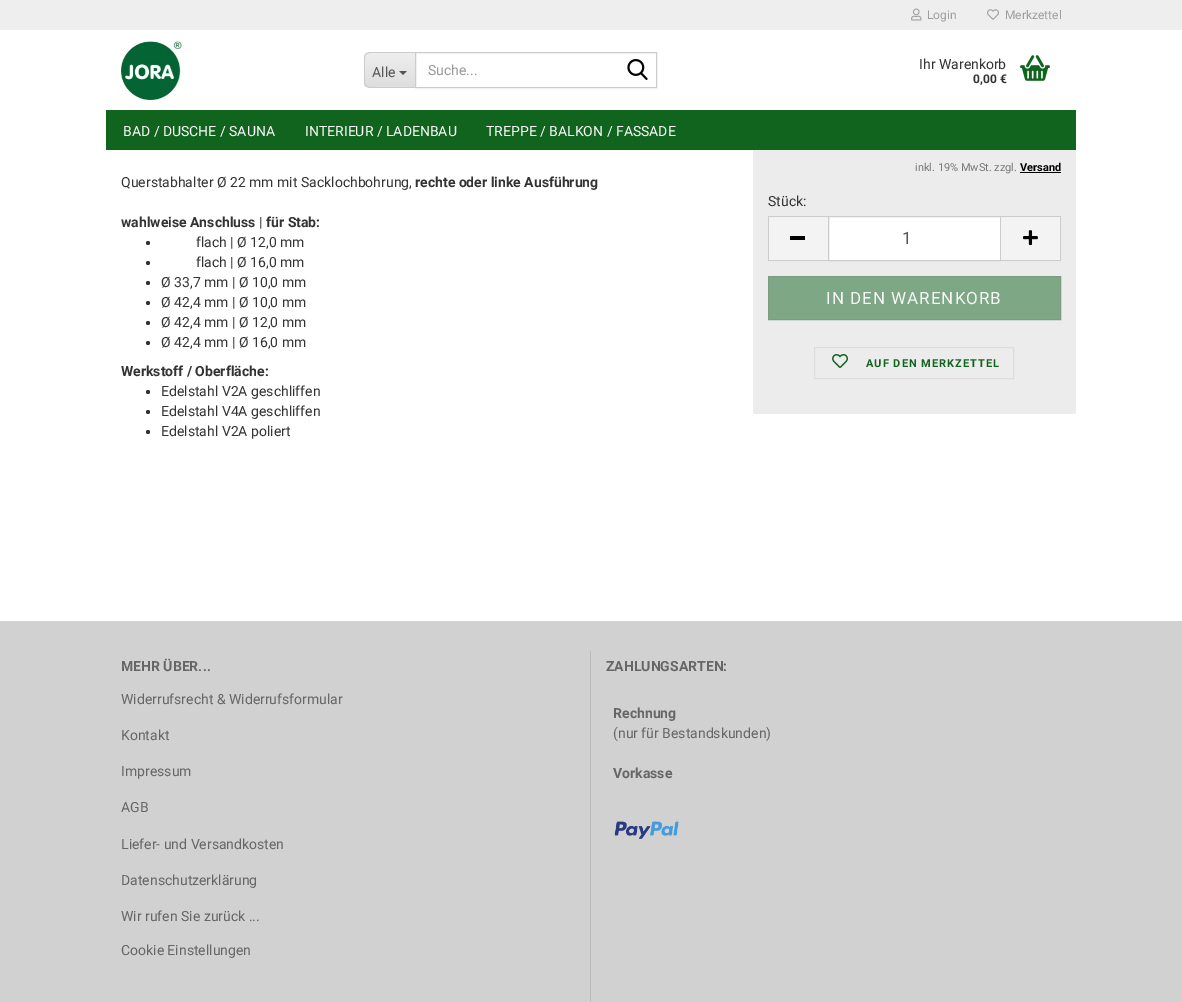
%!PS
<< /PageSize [1182 1002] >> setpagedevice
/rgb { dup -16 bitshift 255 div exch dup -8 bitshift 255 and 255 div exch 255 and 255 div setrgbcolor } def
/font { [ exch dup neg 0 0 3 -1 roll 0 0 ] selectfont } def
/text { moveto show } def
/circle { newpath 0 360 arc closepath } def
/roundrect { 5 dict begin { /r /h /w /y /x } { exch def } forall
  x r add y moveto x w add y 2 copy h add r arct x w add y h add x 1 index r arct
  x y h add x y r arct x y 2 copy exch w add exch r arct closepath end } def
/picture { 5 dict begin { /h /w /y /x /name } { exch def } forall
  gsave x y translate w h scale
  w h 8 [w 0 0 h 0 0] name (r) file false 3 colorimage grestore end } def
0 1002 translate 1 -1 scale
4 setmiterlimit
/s1 { /Roboto-Regular 12 font 16#9F9F9F rgb } def
/s2 { /Roboto-Regular 14 font 16#555555 rgb } def
/s3 { /Roboto-Regular 14 font 16#999999 rgb } def
/s4 { /Roboto-Regular 14 font 16#333333 rgb } def
/s5 { /Roboto-Bold 12 font 16#333333 rgb } def
/s6 { /Roboto-Regular 14 font 16#FFFFFF rgb } def
/s7 { /Roboto-Bold 14 font 16#333333 rgb } def
/s8 { /Roboto-Regular 11 font 16#777777 rgb } def
/s9 { /Roboto-Bold 11 font 16#000000 rgb } def
/s10 { /Roboto-Regular 17 font 16#555555 rgb } def
/s11 { /Roboto-Bold 14 font 16#666666 rgb } def
/s12 { /Roboto-Regular 14 font 16#666666 rgb } def
16#FFFFFF rgb
0 0 1182 1002 rectfill
16#ECECEC rgb
753 -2 323 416 2 roundrect fill
16#FFFFFF rgb
753 30 323 120 rectfill
16#EEEEEE rgb
0 0 1182 30 rectfill
(pic1.raw) 911 8 11 13 picture
s1
(Login) 927 19 text
(pic2.raw) 987 9 12 11 picture
(Merkzettel) 1005 19 text
(pic3.raw) 121 40 63 60 picture
gsave
370 52 moveto 415 52 lineto 415 88 lineto 370 88 lineto 366.5 88 364 85.5 364 82 curveto 364 58 lineto 364 54.5 366.5 52 370 52 curveto closepath clip newpath
gsave 364 53 moveto 415 53 lineto 415 87 lineto 364 87 lineto closepath clip newpath
<< /ShadingType 2 /ColorSpace /DeviceRGB /Coords [390 53 390 87] /Extend [true true] /Function << /FunctionType 2 /Domain [0 1] /C0 [0.933 0.933 0.933] /C1 [0.871 0.871 0.871] /N 1 >> >> shfill grestore
grestore
16#CCCCCC rgb
370 52 moveto 415 52 lineto 415 88 lineto 370 88 lineto 367 88 364 85 364 82 curveto 364 58 lineto 364 55 367 52 370 52 curveto closepath 370 53 moveto 415 53 lineto 415 87 lineto 370 87 lineto 367 87 365 85 365 82 curveto 365 58 lineto 365 55 367 53 370 53 curveto closepath eofill
s2
(Alle) 372 77 text
399 71 moveto 407 71 lineto 403 75 lineto closepath fill
16#CCCCCC rgb
415.5 52.5 241 35 rectstroke
s3
(Suche...) 428 75 text
(pic4.raw) 627 59 21 21 picture
s4
(Ihr Warenkorb) 919 69 text
s5
(0,00 €) 973 83 text
(pic5.raw) 1020 55 30 26 picture
16#10641D rgb
106 110 970 40 rectfill
s6
(BAD / DUSCHE / SAUNA) 123 136 text
(INTERIEUR / LADENBAU) 305 136 text
(TREPPE / BALKON / FASSADE) 486 136 text
s4
(Querstabhalter Ø 22 mm mit Sacklochbohrung,) 121 187 text
s7
(rechte oder linke Ausführung) 415 187 text
(wahlweise Anschluss | für Stab:) 121 227 text
148 243 2 circle fill
s4
(flach | Ø 12,0 mm) 196 247 text
148 263 2 circle fill
(flach | Ø 16,0 mm) 196 267 text
148 283 2 circle fill
(Ø 33,7 mm | Ø 10,0 mm) 161 287 text
148 303 2 circle fill
(Ø 42,4 mm | Ø 10,0 mm) 161 307 text
148 323 2 circle fill
(Ø 42,4 mm | Ø 12,0 mm) 161 327 text
148 343 2 circle fill
(Ø 42,4 mm | Ø 16,0 mm) 161 347 text
s7
(Werkstoff / Oberfläche:) 121 376 text
148 392 2 circle fill
s4
(Edelstahl V2A geschliffen) 161 396 text
148 412 2 circle fill
(Edelstahl V4A geschliffen) 161 416 text
148 432 2 circle fill
(Edelstahl V2A poliert) 161 436 text
s8
(inkl. 19% MwSt. zzgl.) 915 171 text
s9
(Versand) 1020 171 text
1020 172 41 1 rectfill
s4
(Stück:) 768 206 text
16#F3F3F3 rgb
769 217 59 43 rectfill
16#CCCCCC rgb
768 216 60 1 rectfill
768 260 60 1 rectfill
768 216 1 45 rectfill
16#000000 rgb
790 236 15 4 rectfill
16#FFFFFF rgb
828.5 216.5 moveto 1000.5 216.5 lineto 1000.5 260.5 lineto 828.5 260.5 lineto closepath gsave fill grestore
16#CCCCCC rgb
stroke
s10
(1) 902 244 text
16#F3F3F3 rgb
1001 217 59 43 rectfill
16#CCCCCC rgb
1001 216 60 1 rectfill
1060 216 1 45 rectfill
1001 260 60 1 rectfill
(pic6.raw) 1023 230 15 16 picture
16#7EA885 rgb
768.5 276.5 moveto 1060.5 276.5 lineto 1060.5 319.5 lineto 768.5 319.5 lineto closepath gsave fill grestore
16#7C9D82 rgb
stroke
16#F6F6F6 rgb
826 304 moveto 1 0 (IN DEN WARENKORB) ashow
16#DDDDDD rgb
814.5 347.5 199 31 rectstroke
(pic7.raw) 832 354 16 14 picture
/Roboto-Bold 11 font
16#10641D rgb
866 367 moveto 1 0 (AUF DEN MERKZETTEL) ashow
16#D1D1D1 rgb
0 621 1182 381 rectfill
16#BBBBBB rgb
590 651 1 351 rectfill
s11
(MEHR ÜBER...) 121 671 text
s12
(Widerrufsrecht & Widerrufsformular) 121 704 text
(Kontakt) 121 740 text
(Impressum) 121 776 text
(AGB) 121 812 text
(Liefer- und Versandkosten) 121 849 text
(Datenschutzerklärung) 121 885 text
(Wir rufen Sie zurück ...) 121 921 text
(Cookie Einstellungen) 121 955 text
s11
(ZAHLUNGSARTEN:) 606 671 text
(Rechnung) 613 718 text
s12
(\(nur für Bestandskunden\)) 613 738 text
s11
(Vorkasse) 613 778 text
(pic8.raw) 614 821 65 18 picture
showpage
